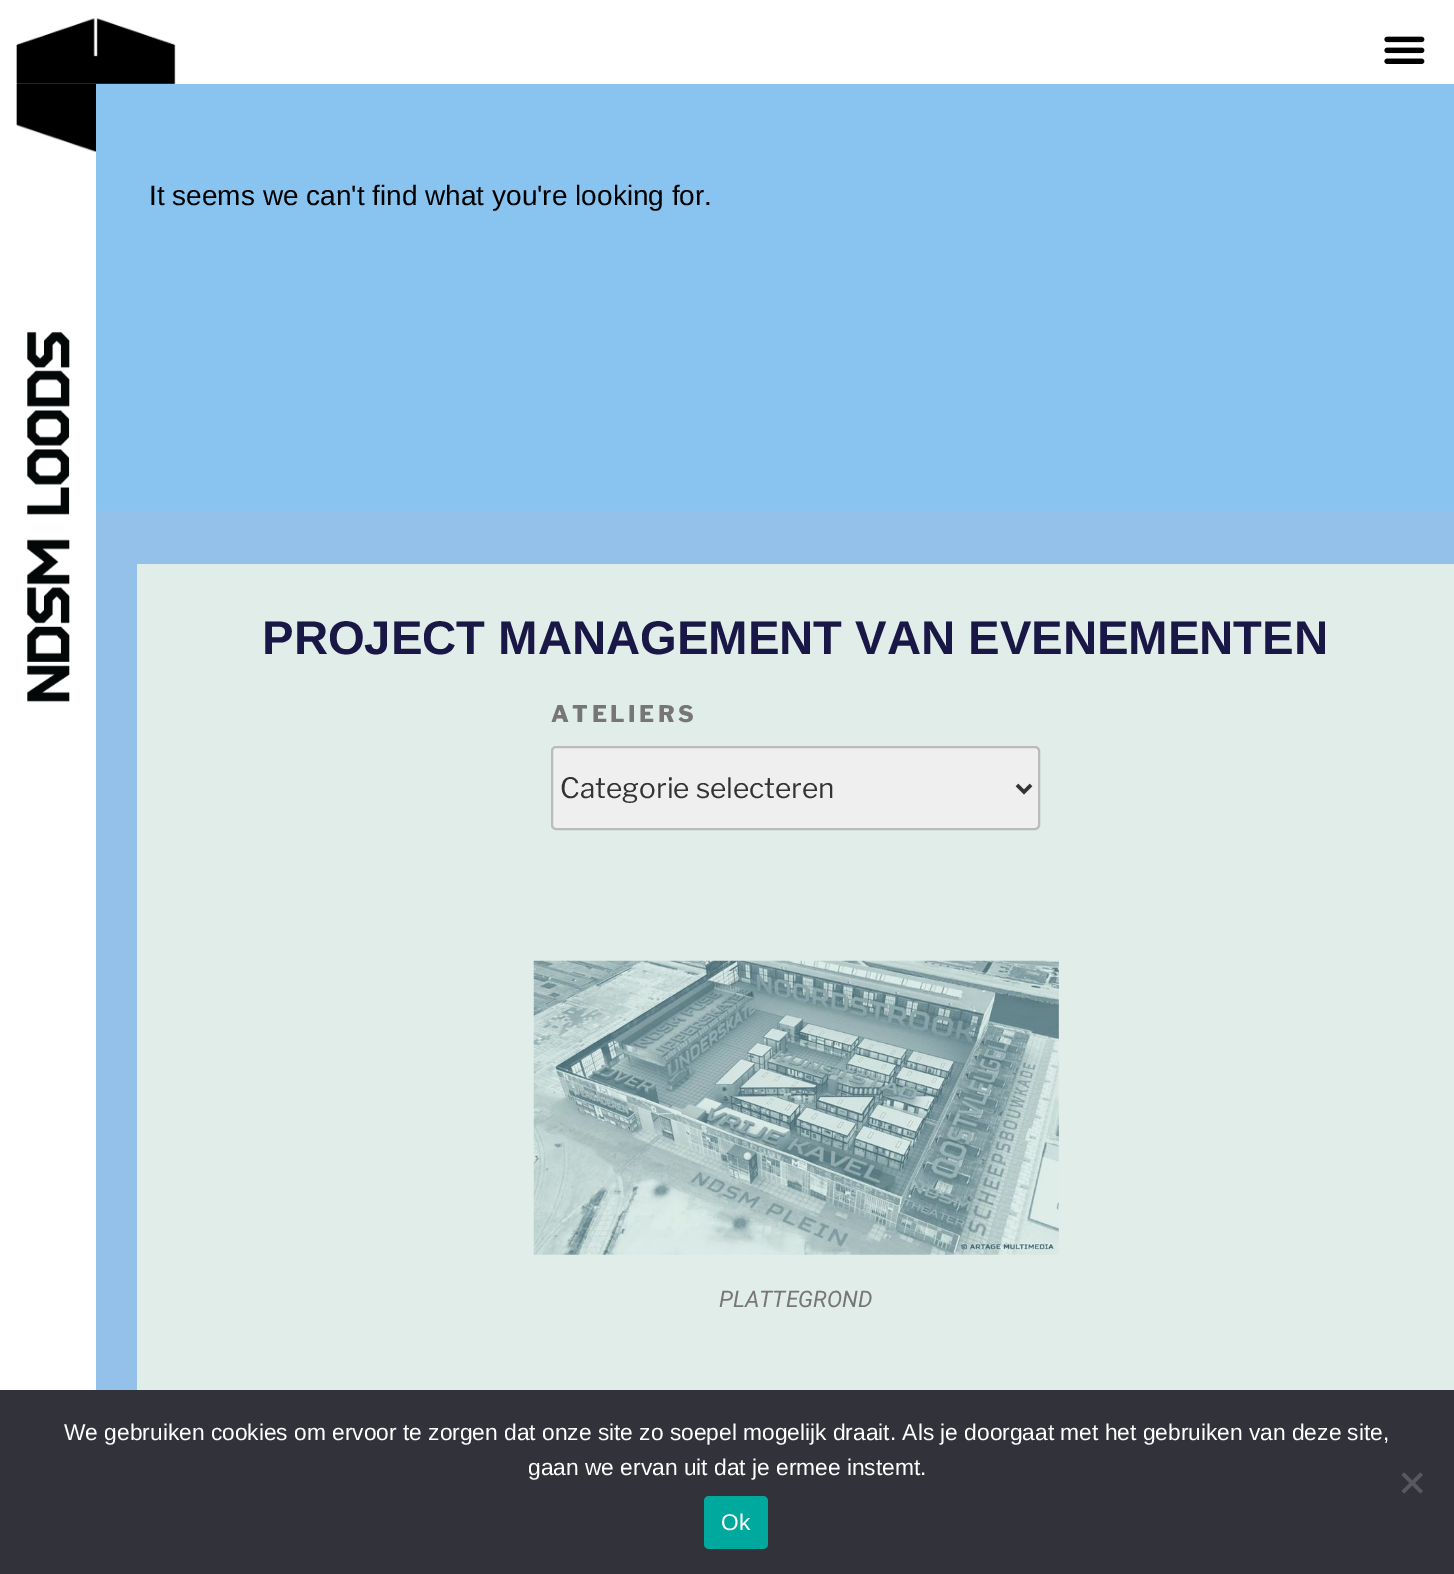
%!PS
<< /PageSize [1454 1574] >> setpagedevice
/rgb { dup -16 bitshift 255 div exch dup -8 bitshift 255 and 255 div exch 255 and 255 div setrgbcolor } def
/font { [ exch dup neg 0 0 3 -1 roll 0 0 ] selectfont } def
/text { moveto show } def
/roundrect { 5 dict begin { /r /h /w /y /x } { exch def } forall
  x r add y moveto x w add y 2 copy h add r arct x w add y h add x 1 index r arct
  x y h add x y r arct x y 2 copy exch w add exch r arct closepath end } def
/picture { 5 dict begin { /h /w /y /x /name } { exch def } forall
  gsave x y translate w h scale
  w h 8 [w 0 0 h 0 0] name (r) file false 3 colorimage grestore end } def
0 1574 translate 1 -1 scale
4 setmiterlimit
/s1 { /LiberationSans-Regular 28 font 16#000000 rgb } def
/s2 { /LiberationSans-Bold 47.25 font 16#191745 rgb } def
/s3 { /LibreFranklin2-Thin 28 font 16#333333 rgb } def
/s4 { /Roboto-Italic 22.75 font 16#767676 rgb } def
/s5 { /LiberationSans-Regular 22.75 font 16#FFFFFF rgb } def
16#FFFFFF rgb
0 0 1454 1574 rectfill
(pic1.raw) 16 18 160 66 picture
(pic2.raw) 1384 36 41 28 picture
(pic3.raw) 16 84 80 69 picture
(pic4.raw) 27 331 43 371 picture
16#88C4EF rgb
96 84 1358 427 rectfill
s1
(It seems we can't find what you're looking for.) 149 205 text
16#E1EDE9 rgb
137 564 1317 826 rectfill
16#94C1E9 rgb
137 511 1317 53 rectfill
96 511 41 879 rectfill
s2
(PROJECT MANAGEMENT VAN EVENEMENTEN) 262 654 text
/LibreFranklin-Thin 22.75 font
16#767676 rgb
551 722 moveto 3.5 0 (ATELIERS) ashow
16#EFEFEF rgb
552 747 487 82 4 roundrect gsave fill grestore
16#BBBBBB rgb
2 setlinewidth
stroke
16#333333 rgb
3.5 setlinewidth
1017 785 moveto 1024 792 lineto 1031 785 lineto stroke
s3
(Categorie selecteren) 560 798 text
(pic5.raw) 533 960 526 295 picture
s4
(PLATTEGROND) 719 1307 text
16#32323A rgb
0 1390 1454 184 rectfill
s5
(We gebruiken cookies om ervoor te zorgen dat onze site zo soepel mogelijk draait. Als je doorgaat met het gebruiken van deze site,) 64 1440 text
(gaan we ervan uit dat je ermee instemt.) 528 1475 text
16#59595D rgb
1420.5 1472.5 moveto 1423 1475 lineto 1404 1493.5 lineto 1401.5 1491 lineto closepath fill
1401.5 1475 moveto 1404 1472.5 lineto 1423 1491 lineto 1420.5 1493.5 lineto closepath fill
16#00A99D rgb
704 1496 64 53 5 roundrect fill
s5
(Ok) 721 1530 text
showpage
